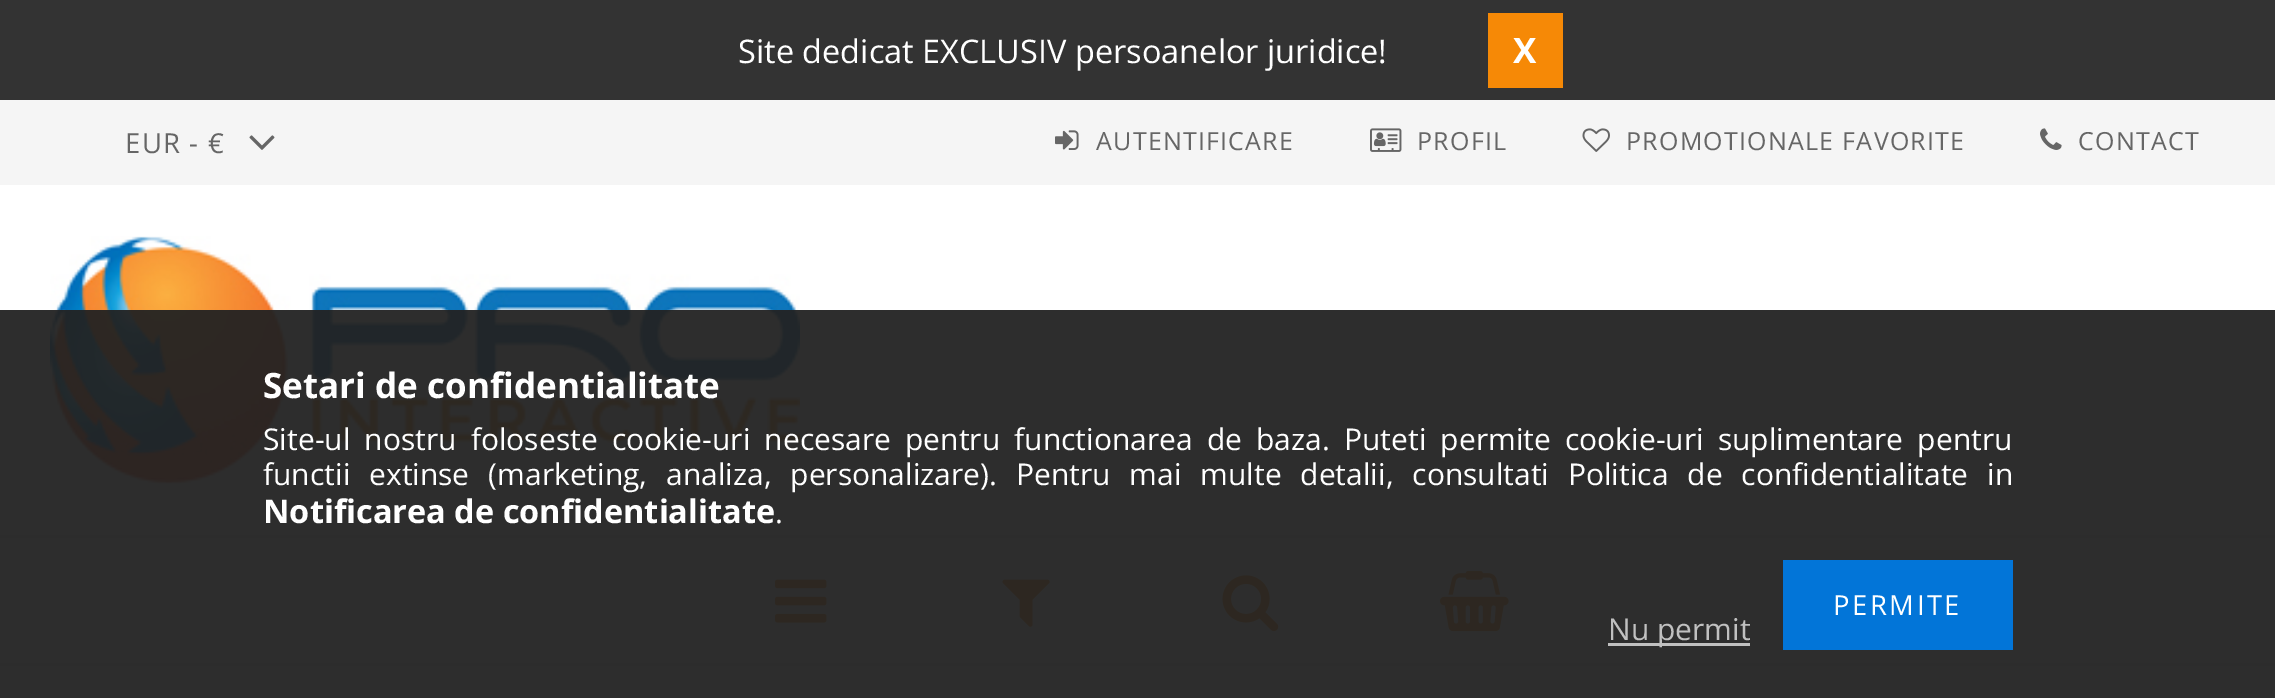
%!PS
<< /PageSize [2275 698] /PageUsesTransparency true >> setpagedevice
/rgb { dup -16 bitshift 255 div exch dup -8 bitshift 255 and 255 div exch 255 and 255 div setrgbcolor } def
/font { [ exch dup neg 0 0 3 -1 roll 0 0 ] selectfont } def
/text { moveto show } def
/alpha { dup .setfillconstantalpha .setstrokeconstantalpha } def
/picture { 5 dict begin { /h /w /y /x /name } { exch def } forall
  gsave x y translate w h scale
  w h 8 [w 0 0 h 0 0] name (r) file false 3 colorimage grestore end } def
0 .pushpdf14devicefilter
0 698 translate 1 -1 scale
4 setmiterlimit
/s1 { /OpenSans-Regular 32.5 font 16#FFFFFF rgb } def
/s2 { /OpenSans-Bold 35 font 16#FFFFFF rgb } def
/s3 { /OpenSans-Bold 32.5 font 16#FFFFFF rgb } def
/s4 { /OpenSans-Regular 30 font 16#FFFFFF rgb } def
/s5 { /OpenSans-Regular 30 font 16#C0C0C0 rgb } def
16#FFFFFF rgb
0 0 2275 698 rectfill
16#333333 rgb
0 0 2275 100 rectfill
s1
(Site dedicat EXCLUSIV persoanelor juridice!) 738 63 text
16#F68906 rgb
1488 13 75 75 rectfill
s2
(X) 1513 63 text
16#F5F5F5 rgb
0 100 2275 85 rectfill
/OpenSans-Regular 27.5 font
16#666666 rgb
125 153 moveto 1.25 0 (EUR - €) ashow
(pic1.raw) 249 135 26 15 picture
(pic2.raw) 1055 130 24 20 picture
/OpenSans-Regular 25 font
1096 150 moveto 1.25 0 (AUTENTIFICARE) ashow
(pic3.raw) 1370 128 32 24 picture
1417 150 moveto 1.25 0 (PROFIL) ashow
(pic4.raw) 1582 128 28 24 picture
1626 150 moveto 1.25 0 (PROMOTIONALE FAVORITE) ashow
(pic5.raw) 2040 128 22 22 picture
2078 150 moveto 1.25 0 (CONTACT) ashow
(pic6.raw) 50 236 750 249 picture
16#DDDDDD rgb
0 535 2275 3 rectfill
0 663 2275 3 rectfill
(pic7.raw) 775 579 52 44 picture
(pic8.raw) 1002 579 48 48 picture
(pic9.raw) 1222 575 57 57 picture
(pic10.raw) 1440 571 69 61 picture
0.95 alpha
16#222222 rgb
0 310 2275 388 rectfill
1 alpha
s2
(Setari de confidentialitate) 263 398 text
/OpenSans-Regular 30 font
263 450 moveto 6.4 0 32 (Site-ul nostru foloseste cookie-uri necesare pentru functionarea de baza. Puteti permite cookie-uri suplimentare pentru) widthshow
263 485 moveto 11.1 0 32 (functii extinse \(marketing, analiza, personalizare\). Pentru mai multe detalii, consultati Politica de confidentialitate in) widthshow
s3
(Notificarea de confidentialitate) 263 523 text
s4
(.) 775 523 text
16#0275D8 rgb
1783 560 230 90 rectfill
/OpenSans-Regular 27.5 font
16#FFFFFF rgb
1833 615 moveto 2.5 0 (PERMITE) ashow
16#C0C0C0 rgb
1608 643 142 3 rectfill
s5
(Nu permit) 1608 640 text
.poppdf14devicefilter showpage
